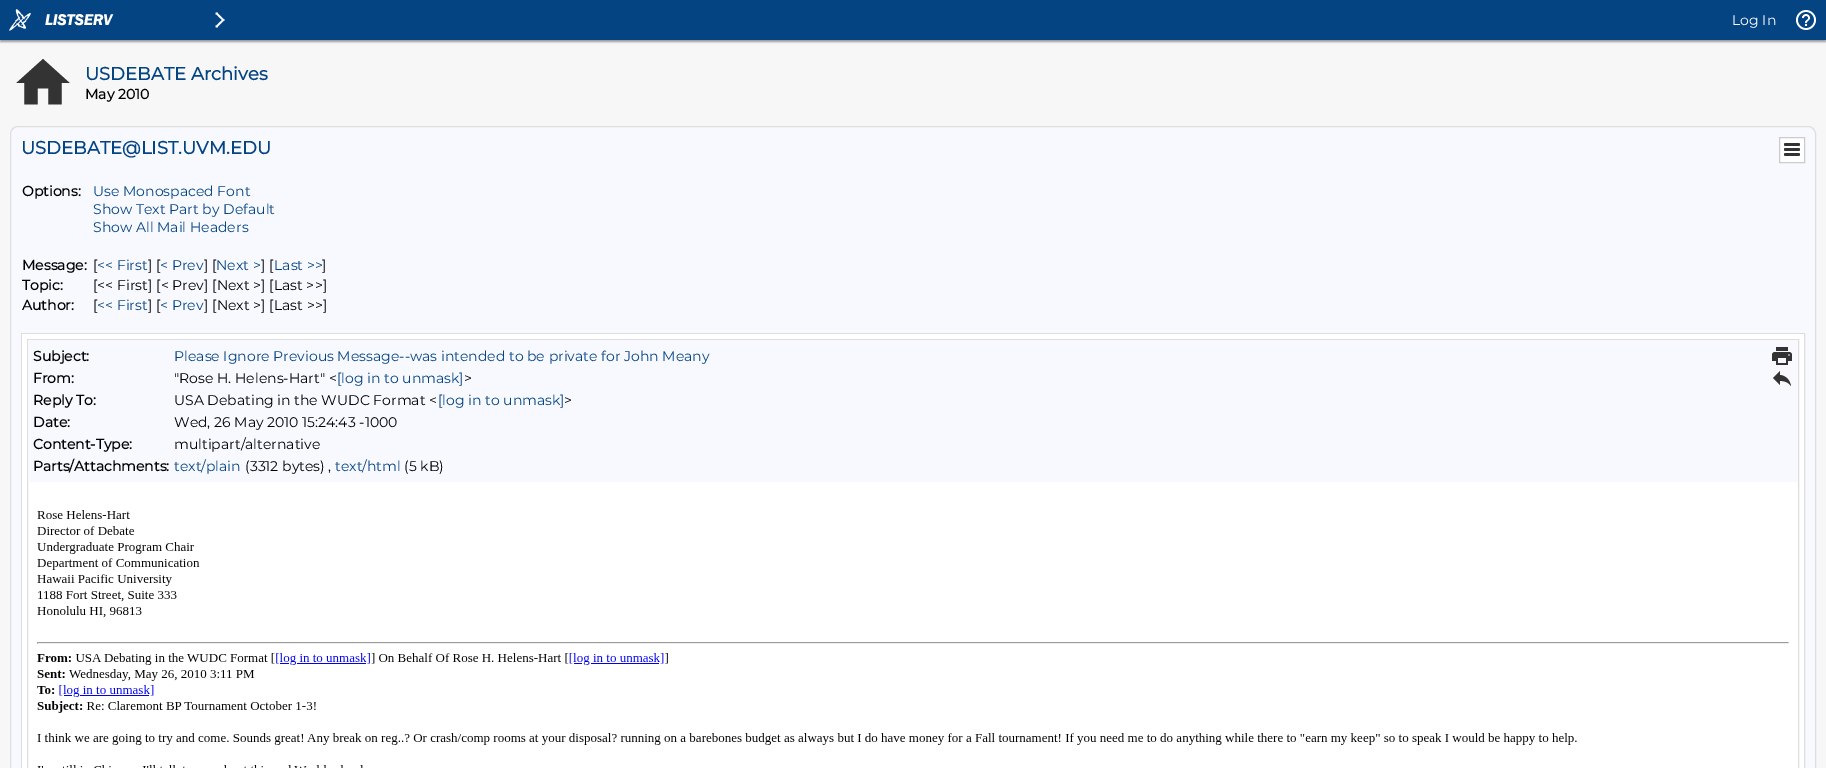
%!PS
<< /PageSize [1826 768] /PageUsesTransparency true >> setpagedevice
/rgb { dup -16 bitshift 255 div exch dup -8 bitshift 255 and 255 div exch 255 and 255 div setrgbcolor } def
/font { [ exch dup neg 0 0 3 -1 roll 0 0 ] selectfont } def
/text { moveto show } def
/alpha { dup .setfillconstantalpha .setstrokeconstantalpha } def
/roundrect { 5 dict begin { /r /h /w /y /x } { exch def } forall
  x r add y moveto x w add y 2 copy h add r arct x w add y h add x 1 index r arct
  x y h add x y r arct x y 2 copy exch w add exch r arct closepath end } def
/shadow { 12 dict begin { /a /b /q /h /w /y /x } { exch def } forall gsave /was 0 def
  9 -2 -9 { dup b mul 4 div /e exch def 1 sub .425 mul 2.718 exch exp 1 add a .99 .min exch div /now exch def
    1 1 now sub 1 was sub div sub alpha /was now def
    w h .min e 2 mul add 0 gt { x e sub y e sub w e 2 mul add h e 2 mul add
      q e add b .6 mul add w h .min 2 div e add .min 0 .max roundrect fill } if } for grestore end } def
/picture { 5 dict begin { /h /w /y /x /name } { exch def } forall
  gsave x y translate w h scale
  w h 8 [w 0 0 h 0 0] name (r) file false 3 colorimage grestore end } def
0 .pushpdf14devicefilter
0 768 translate 1 -1 scale
4 setmiterlimit
/s1 { /Montserrat-Thin 14 font 16#FFFFFF rgb } def
/s2 { /Montserrat-Bold 18 font 16#054483 rgb } def
/s3 { /Montserrat-Bold 14 font 16#000000 rgb } def
/s4 { /Montserrat-Thin 14 font 16#054483 rgb } def
/s5 { /Montserrat-Thin 14 font 16#000000 rgb } def
16#F7F7F7 rgb
0 0 1826 768 rectfill
16#999999 rgb
0 2 1826 40 0 1 1 shadow
16#054483 rgb
0 0 1826 40 rectfill
(pic1.raw) 9 9 22 22 picture
(pic2.raw) 45 14 69 12 picture
(pic3.raw) 215 12 10 16 picture
s1
(Log In) 1732 25 text
(pic4.raw) 1796 10 20 20 picture
(pic5.raw) 16 59 54 46 picture
s2
(USDEBATE Archives) 85 80 text
s3
(May 2010) 85 99 text
16#F7F9FE rgb
10.5 126.5 1805 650 7.5 roundrect gsave fill grestore
16#DEDEDE rgb
stroke
s2
(USDEBATE@LIST.UVM.EDU) 21 154 text
16#FFFFFF rgb
1779.5 137.5 moveto 1804.5 137.5 lineto 1804.5 162.5 lineto 1779.5 162.5 lineto closepath gsave fill grestore
16#CCCCCC rgb
stroke
(pic6.raw) 1784 143 16 13 picture
s3
(Options:) 22 196 text
s4
(Use Monospaced Font) 93 196 text
(Show Text Part by Default) 93 214 text
(Show All Mail Headers) 93 232 text
s3
(Message:) 22 270 text
s5
([) 93 270 text
s4
(<< First) 97 270 text
s5
(] [) 148 270 text
s4
(< Prev) 160 270 text
s5
(] [) 204 270 text
s4
(Next >) 216 270 text
s5
(] [) 261 270 text
s4
(Last >>) 274 270 text
s5
(]) 322 270 text
s3
(Topic:) 22 290 text
s5
([<< First] [< Prev] [Next >] [Last >>]) 93 290 text
s3
(Author:) 22 310 text
s5
([) 93 310 text
s4
(<< First) 97 310 text
s5
(] [) 148 310 text
s4
(< Prev) 160 310 text
s5
(] [Next >] [Last >>]) 204 310 text
16#DEDEDE rgb
21.5 333.5 1783 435 rectstroke
16#FFFFFF rgb
22 334 1782 434 rectfill
16#DEDEDE rgb
27.5 339.5 1771 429 rectstroke
16#F7F9FE rgb
28 340 1770 142 rectfill
s3
(Subject:) 33 361 text
s4
(Please Ignore Previous Message--was intended to be private for John Meany) 174 361 text
s3
(From:) 33 383 text
s5
("Rose H. Helens-Hart" <) 174 383 text
s4
([log in to unmask]) 337 383 text
s5
(>) 464 383 text
s3
(Reply To:) 33 405 text
s5
(USA Debating in the WUDC Format <) 174 405 text
s4
([log in to unmask]) 438 405 text
s5
(>) 564 405 text
s3
(Date:) 33 427 text
s5
(Wed, 26 May 2010 15:24:43 -1000) 174 427 text
s3
(Content-Type:) 33 449 text
s5
(multipart/alternative) 174 449 text
s3
(Parts/Attachments:) 33 471 text
s4
(text/plain) 174 471 text
s5
(\(3312 bytes\) ,) 245 471 text
s4
(text/html) 335 471 text
s5
(\(5 kB\)) 404 471 text
(pic7.raw) 1772 347 20 18 picture
(pic8.raw) 1773 371 18 15 picture
(pic9.raw) 37 510 1752 258 picture
.poppdf14devicefilter showpage
